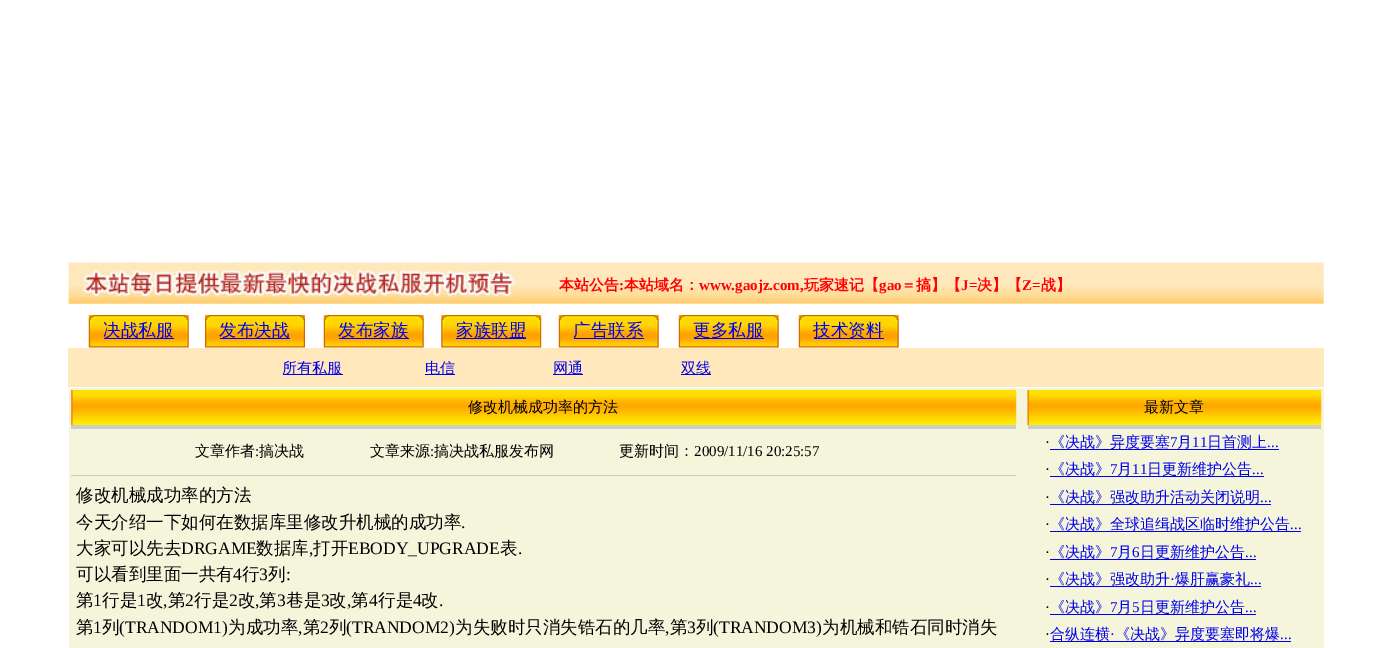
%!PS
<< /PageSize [1391 648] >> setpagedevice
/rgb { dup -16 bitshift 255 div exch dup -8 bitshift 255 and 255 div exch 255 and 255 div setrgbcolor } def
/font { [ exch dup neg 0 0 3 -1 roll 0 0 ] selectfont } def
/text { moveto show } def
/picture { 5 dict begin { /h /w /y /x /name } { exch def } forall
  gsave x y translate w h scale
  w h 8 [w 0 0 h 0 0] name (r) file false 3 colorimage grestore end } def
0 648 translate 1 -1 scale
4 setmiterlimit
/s1 { /WenQuanYiZenHei-Bold 15 font 16#FF0000 rgb } def
/s2 { /LiberationSerif-Bold 15 font 16#FF0000 rgb } def
/s3 { /WenQuanYiZenHei-Medium 17.5 font 16#0000EE rgb } def
/s4 { /WenQuanYiZenHei-Medium 15 font 16#0000EE rgb } def
/s5 { /WenQuanYiZenHei-Medium 15 font 16#000000 rgb } def
/s6 { /LiberationSerif-Regular 15 font 16#000000 rgb } def
/s7 { /WenQuanYiZenHei-Medium 17.5 font 16#000000 rgb } def
/s8 { /LiberationSerif-Regular 17.5 font 16#000000 rgb } def
/s9 { /LiberationSerif-Regular 15 font 16#0000EE rgb } def
16#FFFFFF rgb
0 0 1391 648 rectfill
(pic1.raw) 68 262 1256 42 picture
(pic2.raw) 68 261 451 43 picture
s1
(本站公告) 559 290 text
s2
(:) 619 290 text
s1
(本站域名：) 624 290 text
s2
(www.gaojz.com,) 699 290 text
s1
(玩家速记【) 804 290 text
s2
(gao) 879 290 text
s1
(＝搞】【) 901 290 text
s2
(J=) 961 290 text
s1
(决】【) 977 290 text
s2
(Z=) 1022 290 text
s1
(战】) 1041 290 text
(pic3.raw) 88 315 101 33 picture
16#0000EE rgb
104 338 70 1 rectfill
s3
(决战私服) 103 336 text
(pic4.raw) 205 315 100 33 picture
220 338 70 1 rectfill
(发布决战) 219 336 text
(pic5.raw) 323 315 101 33 picture
339 338 70 1 rectfill
(发布家族) 338 336 text
(pic6.raw) 441 315 101 33 picture
456 338 70 1 rectfill
(家族联盟) 456 336 text
(pic3.raw) 558 315 101 33 picture
574 338 70 1 rectfill
(广告联系) 573 336 text
(pic7.raw) 678 315 101 33 picture
694 338 70 1 rectfill
(更多私服) 693 336 text
(pic5.raw) 798 315 101 33 picture
814 338 70 1 rectfill
(技术资料) 813 336 text
16#FFE8BC rgb
68 348 1256 39 rectfill
16#0000EE rgb
283 374 60 1 rectfill
s4
(所有私服) 282 373 text
425 374 30 1 rectfill
(电信) 425 373 text
553 374 30 1 rectfill
(网通) 553 373 text
681 374 30 1 rectfill
(双线) 681 373 text
16#F5F5DC rgb
69 388 1255 260 rectfill
(pic8.raw) 71 390 946 35 picture
s5
(修改机械成功率的方法) 468 412 text
16#CCCCCC rgb
71 425 945 4 rectfill
s5
(文章作者) 195 456 text
s6
(:) 255 456 text
s5
(搞决战) 259 456 text
(文章来源) 370 456 text
s6
(:) 430 456 text
s5
(搞决战私服发布网) 434 456 text
(更新时间：) 619 456 text
s6
(2009/11/16 20:25:57) 694 456 text
16#CCCCCC rgb
71 475 945 1 rectfill
s7
(修改机械成功率的方法) 76 501 text
(今天介绍一下如何在数据库里修改升机械的成功率) 76 528 text
s8
(.) 461 528 text
s7
(大家可以先去) 76 554 text
s8
(DRGAME) 181 554 text
s7
(数据库) 256 554 text
s8
(,) 309 554 text
s7
(打开) 313 554 text
s8
(EBODY_UPGRADE) 348 554 text
s7
(表) 500 554 text
s8
(.) 518 554 text
s7
(可以看到里面一共有) 76 580 text
s8
(4) 233 580 text
s7
(行) 242 580 text
s8
(3) 259 580 text
s7
(列) 268 580 text
s8
(:) 286 580 text
s7
(第) 76 606 text
s8
(1) 93 606 text
s7
(行是) 102 606 text
s8
(1) 137 606 text
s7
(改) 146 606 text
(第) 168 606 text
s8
(2) 185 606 text
s7
(行是) 194 606 text
s8
(2) 229 606 text
s7
(改) 238 606 text
(第) 259 606 text
s8
(3) 277 606 text
s7
(巷是) 286 606 text
s8
(3) 321 606 text
s7
(改) 329 606 text
(第) 351 606 text
s8
(4) 369 606 text
s7
(行是) 378 606 text
s8
(4) 413 606 text
s7
(改) 421 606 text
s8
(,) 163 606 text
(,) 255 606 text
(,) 347 606 text
(.) 439 606 text
s7
(第) 76 633 text
s8
(1) 93 633 text
s7
(列) 102 633 text
s8
(\(TRANDOM1\)) 119 633 text
s7
(为成功率) 228 633 text
s8
(,) 298 633 text
s7
(第) 303 633 text
s8
(2) 320 633 text
s7
(列) 329 633 text
s8
(\(TRANDOM2\)) 346 633 text
s7
(为失败时只消失锆石的几率) 455 633 text
s8
(,) 665 633 text
s7
(第) 670 633 text
s8
(3) 687 633 text
s7
(列) 696 633 text
s8
(\(TRANDOM3\)) 713 633 text
s7
(为机械和锆石同时消失) 822 633 text
(pic9.raw) 1027 390 295 35 picture
s5
(最新文章) 1144 412 text
16#CCCCCC rgb
1028 425 293 4 rectfill
s6
(·) 1045 447 text
16#0000EE rgb
1050 449 229 1 rectfill
s4
(《决战》异度要塞) 1050 447 text
s9
(7) 1170 447 text
s4
(月) 1177 447 text
s9
(11) 1192 447 text
s4
(日首测上) 1207 447 text
s9
(...) 1267 447 text
s6
(·) 1045 474 text
s4
(《决战》) 1050 474 text
s9
(7) 1110 474 text
s4
(月) 1117 474 text
s9
(11) 1132 474 text
1050 476 214 1 rectfill
s4
(日更新维护公告) 1147 474 text
s9
(...) 1252 474 text
s6
(·) 1045 502 text
16#0000EE rgb
1050 504 221 1 rectfill
s4
(《决战》强改助升活动关闭说明) 1050 502 text
s9
(...) 1260 502 text
s6
(·) 1045 529 text
16#0000EE rgb
1050 531 251 1 rectfill
s4
(《决战》全球追缉战区临时维护公告) 1050 529 text
s9
(...) 1290 529 text
s6
(·) 1045 557 text
s4
(《决战》) 1050 557 text
s9
(7) 1110 557 text
s4
(月) 1117 557 text
s9
(6) 1132 557 text
1050 559 206 1 rectfill
s4
(日更新维护公告) 1140 557 text
s9
(...) 1245 557 text
s6
(·) 1045 584 text
16#0000EE rgb
1050 586 211 1 rectfill
s4
(《决战》强改助升) 1050 584 text
s9
(·) 1170 584 text
s4
(爆肝赢豪礼) 1175 584 text
s9
(...) 1250 584 text
s6
(·) 1045 612 text
s4
(《决战》) 1050 612 text
s9
(7) 1110 612 text
s4
(月) 1117 612 text
s9
(5) 1132 612 text
1050 614 206 1 rectfill
s4
(日更新维护公告) 1140 612 text
s9
(...) 1245 612 text
s6
(·) 1045 639 text
16#0000EE rgb
1050 641 241 1 rectfill
s4
(合纵连横) 1050 639 text
s9
(·) 1110 639 text
s4
(《决战》异度要塞即将爆) 1115 639 text
s9
(...) 1280 639 text
showpage
